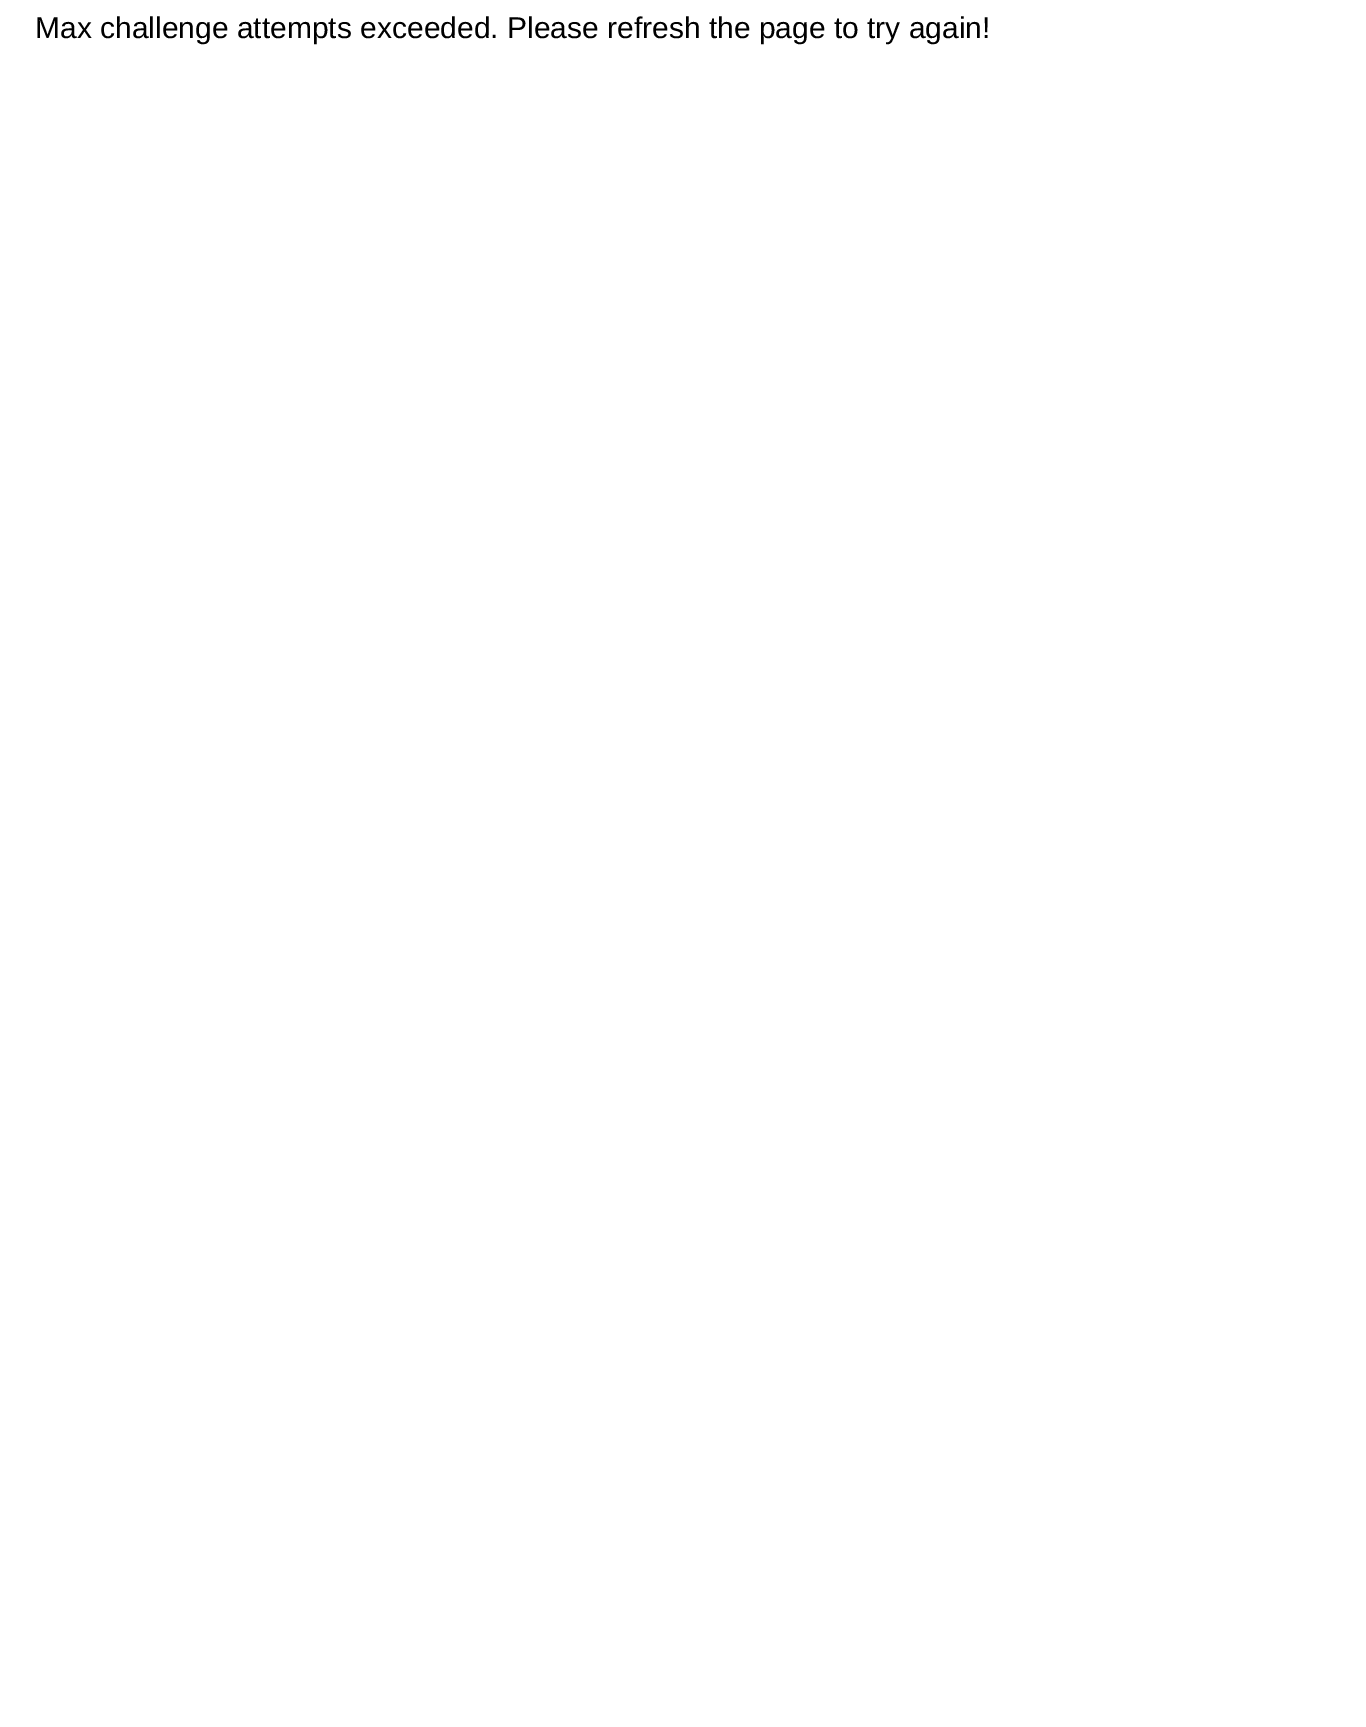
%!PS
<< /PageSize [1366 1727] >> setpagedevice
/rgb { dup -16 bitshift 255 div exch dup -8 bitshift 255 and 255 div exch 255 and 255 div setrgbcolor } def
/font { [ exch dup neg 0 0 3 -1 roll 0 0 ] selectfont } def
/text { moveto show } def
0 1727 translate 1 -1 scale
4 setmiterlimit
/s1 { /LiberationSans-Regular 30 font 16#000000 rgb } def
16#FFFFFF rgb
0 0 1366 1727 rectfill
s1
(Max challenge attempts exceeded. Please refresh the page to try again!) 35 38 text
showpage
